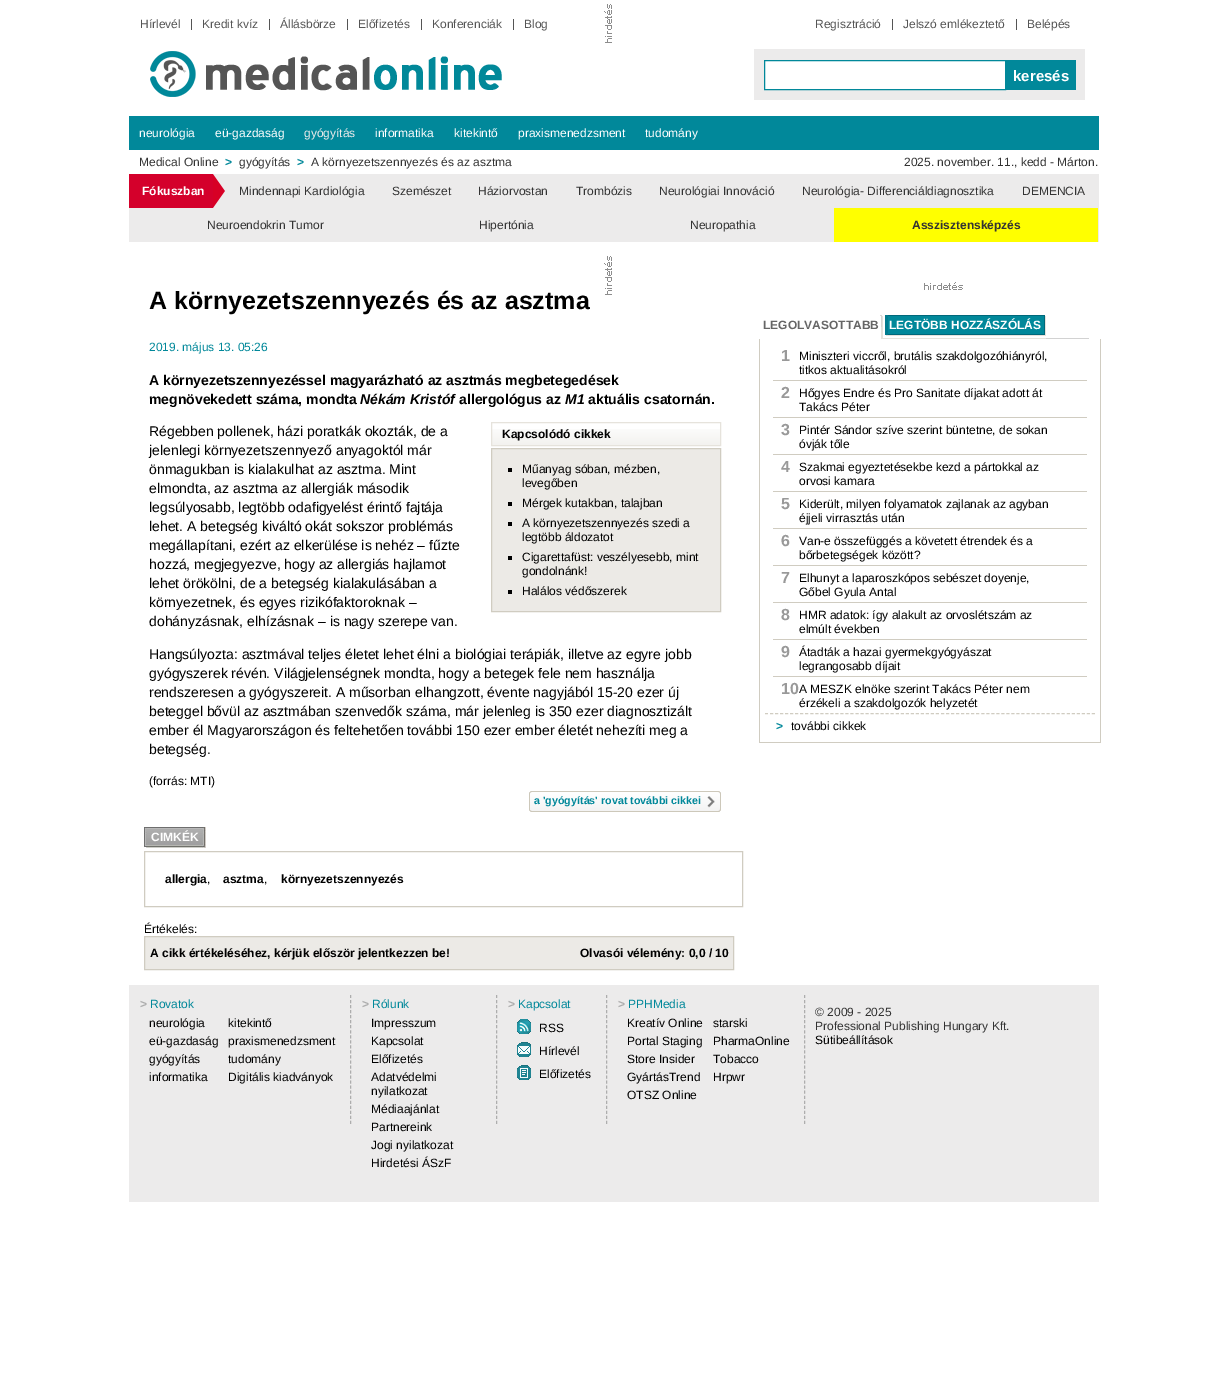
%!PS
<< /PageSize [1227 1385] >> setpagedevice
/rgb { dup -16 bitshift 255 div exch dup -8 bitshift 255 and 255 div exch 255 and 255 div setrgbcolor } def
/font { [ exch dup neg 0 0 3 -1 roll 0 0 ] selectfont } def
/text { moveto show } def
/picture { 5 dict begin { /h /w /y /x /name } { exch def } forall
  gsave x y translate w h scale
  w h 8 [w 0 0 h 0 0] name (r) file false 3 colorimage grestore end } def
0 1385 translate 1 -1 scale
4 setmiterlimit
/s1 { /LiberationSans-Regular 12 font 16#555555 rgb } def
/s2 { /LiberationSans-Bold 15 font 16#FFFFFF rgb } def
/s3 { /LiberationSans-Regular 12 font 16#FFFFFF rgb } def
/s4 { /LiberationSans-Regular 12 font 16#ECEBEB rgb } def
/s5 { /LiberationSans-Regular 12 font 16#333333 rgb } def
/s6 { /LiberationSans-Bold 12 font 16#01889A rgb } def
/s7 { /LiberationSans-Bold 12 font 16#FFFFFF rgb } def
/s8 { /LiberationSans-Bold 12 font 16#333333 rgb } def
/s9 { /LiberationSans-Bold 25 font 16#000000 rgb } def
/s10 { /LiberationSans-Regular 12 font 16#01889A rgb } def
/s11 { /LiberationSans-Bold 14 font 16#000000 rgb } def
/s12 { /LiberationSans-BoldItalic 14 font 16#000000 rgb } def
/s13 { /LiberationSans-Regular 14 font 16#000000 rgb } def
/s14 { /LiberationSans-Bold 12 font 16#000000 rgb } def
/s15 { /LiberationSans-Regular 12 font 16#000000 rgb } def
/s16 { /LiberationSans-Bold 10.7 font 16#01889A rgb } def
/s17 { /LiberationSans-Bold 12 font 16#666666 rgb } def
/s18 { /LiberationSans-Bold 16 font 16#999999 rgb } def
/s19 { /LiberationSans-Bold 12 font 16#ADADAD rgb } def
16#FFFFFF rgb
0 0 1227 1385 rectfill
(pic1.raw) 604 4 8 39 picture
s1
(Hírlevél) 140 28 text
191 19 1 11 rectfill
(Kredit kvíz) 202 28 text
269 19 1 11 rectfill
(Állásbörze) 280 28 text
347 19 1 11 rectfill
(Előfizetés) 358 28 text
421 19 1 11 rectfill
(Konferenciák) 432 28 text
513 19 1 11 rectfill
(Blog) 524 28 text
(pic2.raw) 150 51 352 46 picture
(Regisztráció) 815 28 text
892 19 1 11 rectfill
(Jelszó emlékeztető) 903 28 text
1016 19 1 11 rectfill
(Belépés) 1027 28 text
16#ECEBEB rgb
754 49 331 51 rectfill
16#FFFFFF rgb
764.5 60.5 moveto 1005.5 60.5 lineto 1005.5 89.5 lineto 764.5 89.5 lineto closepath gsave fill grestore
16#01889A rgb
stroke
1006 60 70 30 rectfill
s2
(keresés) 1013 81 text
16#01889A rgb
129 116 970 34 rectfill
s3
(neurológia) 139 137 text
(eü-gazdaság) 215 137 text
s4
(gyógyítás) 304 137 text
s3
(informatika) 375 137 text
(kitekintő) 454 137 text
(praxismenedzsment) 518 137 text
(tudomány) 645 137 text
s5
(Medical Online) 139 166 text
s6
(>) 225 166 text
s5
(gyógyítás) 239 166 text
s6
(>) 297 166 text
s5
(A környezetszennyezés és az asztma) 311 166 text
(2025. november. 11., kedd - Márton.) 904 166 text
16#ECEBEB rgb
129 174 970 68 rectfill
16#D4002B rgb
129 174 84 34 rectfill
s7
(Fókuszban) 142 195 text
(pic3.raw) 213 174 12 34 picture
s5
(Mindennapi Kardiológia) 239 195 text
(Szemészet) 392 195 text
(Háziorvostan) 478 195 text
(Trombózis) 576 195 text
(Neurológiai Innováció) 659 195 text
(Neurológia- Differenciáldiagnosztika) 802 195 text
(DEMENCIA) 1022 195 text
(Neuroendokrin Tumor) 207 229 text
(Hipertónia) 479 229 text
(Neuropathia) 690 229 text
16#FFFF00 rgb
834 208 264 34 rectfill
s8
(Asszisztensképzés) 912 229 text
(pic1.raw) 604 256 8 39 picture
s9
(A környezetszennyezés és az asztma) 149 309 text
s10
(2019. május 13. 05:26) 149 351 text
s11
(A környezetszennyezéssel magyarázható az asztmás megbetegedések) 149 385 text
(megnövekedett száma, mondta) 149 404 text
s12
(Nékám Kristóf) 360 404 text
s11
(allergológus az) 459 404 text
s12
(M1) 565 404 text
s11
(aktuális csatornán.) 588 404 text
s13
(Régebben pollenek, házi poratkák okozták, de a) 149 436 text
(jelenlegi környezetszennyező anyagoktól már) 149 455 text
(önmagukban is kialakulhat az asztma. Mint) 149 474 text
(elmondta, az asztma az allergiák második) 149 493 text
(legsúlyosabb, legtöbb odafigyelést érintő fajtája) 149 512 text
(lehet. A betegség kiváltó okát sokszor problémás) 149 531 text
(megállapítani, ezért az elkerülése is nehéz – fűzte) 149 550 text
(hozzá, megjegyezve, hogy az allergiás hajlamot) 149 569 text
(lehet örökölni, de a betegség kialakulásában a) 149 588 text
(környezetnek, és egyes rizikófaktoroknak –) 149 607 text
(dohányzásnak, elhízásnak – is nagy szerepe van.) 149 626 text
(Hangsúlyozta: asztmával teljes életet lehet élni a biológiai terápiák, illetve az egyre jobb) 149 659 text
(gyógyszerek révén. Világjelenségnek mondta, hogy a betegek fele nem használja) 149 678 text
(rendszeresen a gyógyszereit. A műsorban elhangzott, évente nagyjából 15-20 ezer új) 149 697 text
(beteggel bővül az asztmában szenvedők száma, már jelenleg is 350 ezer diagnosztizált) 149 716 text
(ember él Magyarországon és feltehetően további 150 ezer ember életét nehezíti meg a) 149 735 text
(betegség.) 149 754 text
(pic4.raw) 492 429 228 16 picture
16#E6E3DC rgb
491.5 422.5 229 23 rectstroke
s14
(Kapcsolódó cikkek) 502 438 text
16#ECEAE6 rgb
491.5 448.5 moveto 720.5 448.5 lineto 720.5 611.5 lineto 491.5 611.5 lineto closepath gsave fill grestore
16#D0CCC1 rgb
stroke
16#000000 rgb
508 468 4 4 rectfill
s15
(Műanyag sóban, mézben,) 522 473 text
(levegőben) 522 487 text
508 502 4 4 rectfill
(Mérgek kutakban, talajban) 522 507 text
508 522 4 4 rectfill
(A környezetszennyezés szedi a) 522 527 text
(legtöbb áldozatot) 522 541 text
508 556 4 4 rectfill
(Cigarettafüst: veszélyesebb, mint) 522 561 text
(gondolnánk!) 522 575 text
508 590 4 4 rectfill
(Halálos védőszerek) 522 595 text
(\(forrás: MTI\)) 149 785 text
(pic5.raw) 529 791 3 21 picture
(pic6.raw) 532 791 174 21 picture
s16
(a 'gyógyítás' rovat további cikkei) 534 804 text
(pic7.raw) 706 791 15 21 picture
(pic8.raw) 144 827 3 21 picture
(pic9.raw) 147 827 55 21 picture
s7
(CIMKÉK) 151 841 text
(pic10.raw) 202 827 4 21 picture
16#D0CCC1 rgb
144.5 851.5 598 55 rectstroke
s14
(allergia) 165 883 text
s15
(,) 207 883 text
s14
(asztma) 223 883 text
s15
(,) 264 883 text
s14
(környezetszennyezés) 281 883 text
s15
(Értékelés:) 144 933 text
16#ECEAE6 rgb
144.5 936.5 moveto 733.5 936.5 lineto 733.5 969.5 lineto 144.5 969.5 lineto closepath gsave fill grestore
16#D0CCC1 rgb
stroke
s14
(A cikk értékeléséhez, kérjük először jelentkezzen be!) 150 957 text
(Olvasói vélemény: 0,0 / 10) 580 957 text
(pic11.raw) 924 282 39 8 picture
16#D2D2D2 rgb
1046 338 43 1 rectfill
s17
(LEGOLVASOTTABB) 763 329 text
(pic12.raw) 880 315 8 24 picture
(pic13.raw) 888 315 154 24 picture
s7
(LEGTÖBB HOZZÁSZÓLÁS) 889 329 text
(pic14.raw) 1042 315 4 24 picture
16#D0CCC1 rgb
1100 339 1 404 rectfill
759 742 342 1 rectfill
759 339 1 404 rectfill
773 380 314 1 rectfill
s18
(1) 781 361 text
s15
(Miniszteri viccről, brutális szakdolgozóhiányról,) 799 360 text
(titkos aktualitásokról) 799 374 text
16#D0CCC1 rgb
773 417 314 1 rectfill
s18
(2) 781 398 text
s15
(Hőgyes Endre és Pro Sanitate díjakat adott át) 799 397 text
(Takács Péter) 799 411 text
16#D0CCC1 rgb
773 454 314 1 rectfill
s18
(3) 781 435 text
s15
(Pintér Sándor szíve szerint büntetne, de sokan) 799 434 text
(óvják tőle) 799 448 text
16#D0CCC1 rgb
773 491 314 1 rectfill
s18
(4) 781 472 text
s15
(Szakmai egyeztetésekbe kezd a pártokkal az) 799 471 text
(orvosi kamara) 799 485 text
16#D0CCC1 rgb
773 528 314 1 rectfill
s18
(5) 781 509 text
s15
(Kiderült, milyen folyamatok zajlanak az agyban) 799 508 text
(éjjeli virrasztás után) 799 522 text
16#D0CCC1 rgb
773 565 314 1 rectfill
s18
(6) 781 546 text
s15
(Van-e összefüggés a követett étrendek és a) 799 545 text
(bőrbetegségek között?) 799 559 text
16#D0CCC1 rgb
773 602 314 1 rectfill
s18
(7) 781 583 text
s15
(Elhunyt a laparoszkópos sebészet doyenje,) 799 582 text
(Gőbel Gyula Antal) 799 596 text
16#D0CCC1 rgb
773 639 314 1 rectfill
s18
(8) 781 620 text
s15
(HMR adatok: így alakult az orvoslétszám az) 799 619 text
(elmúlt években) 799 633 text
16#D0CCC1 rgb
773 676 314 1 rectfill
s18
(9) 781 657 text
s15
(Átadták a hazai gyermekgyógyászat) 799 656 text
(legrangosabb díjait) 799 670 text
s18
(10) 781 694 text
s15
(A MESZK elnöke szerint Takács Péter nem) 799 693 text
(érzékeli a szakdolgozók helyzetét) 799 707 text
16#D0CCC1 rgb
[3 2.03] 0 setdash
765 713.5 moveto 1095 713.5 lineto stroke
s6
(>) 776 730 text
s15
(további cikkek) 791 730 text
16#ECEBEB rgb
129 985 970 217 rectfill
16#ADADAD rgb
[3 2.04] 0 setdash
350.5 995 moveto 350.5 1124 lineto stroke
s19
(>) 140 1008 text
s10
(Rovatok) 150 1008 text
s15
(neurológia) 149 1027 text
(eü-gazdaság) 149 1045 text
(gyógyítás) 149 1063 text
(informatika) 149 1081 text
(kitekintő) 228 1027 text
(praxismenedzsment) 228 1045 text
(tudomány) 228 1063 text
(Digitális kiadványok) 228 1081 text
16#ADADAD rgb
496.5 995 moveto 496.5 1124 lineto stroke
s19
(>) 362 1008 text
s10
(Rólunk) 372 1008 text
s15
(Impresszum) 371 1027 text
(Kapcsolat) 371 1045 text
(Előfizetés) 371 1063 text
(Adatvédelmi) 371 1081 text
(nyilatkozat) 371 1095 text
(Médiaajánlat) 371 1113 text
(Partnereink) 371 1131 text
(Jogi nyilatkozat) 371 1149 text
(Hirdetési ÁSzF) 371 1167 text
16#ADADAD rgb
606.5 995 moveto 606.5 1124 lineto stroke
s19
(>) 508 1008 text
s10
(Kapcsolat) 518 1008 text
(pic15.raw) 517 1019 14 15 picture
s15
(RSS) 539 1032 text
(pic16.raw) 517 1042 14 15 picture
(Hírlevél) 539 1055 text
(pic17.raw) 517 1065 14 15 picture
(Előfizetés) 539 1078 text
16#ADADAD rgb
804.5 995 moveto 804.5 1124 lineto stroke
s19
(>) 618 1008 text
s10
(PPHMedia) 628 1008 text
s15
(Kreatív Online) 627 1027 text
(Portal Staging) 627 1045 text
(Store Insider) 627 1063 text
(GyártásTrend) 627 1081 text
(OTSZ Online) 627 1099 text
(starski) 713 1027 text
(PharmaOnline) 713 1045 text
(Tobacco) 713 1063 text
(Hrpwr) 713 1081 text
s5
(© 2009 - 2025) 815 1016 text
(Professional Publishing Hungary Kft.) 815 1030 text
s15
(Sütibeállítások) 815 1044 text
showpage
